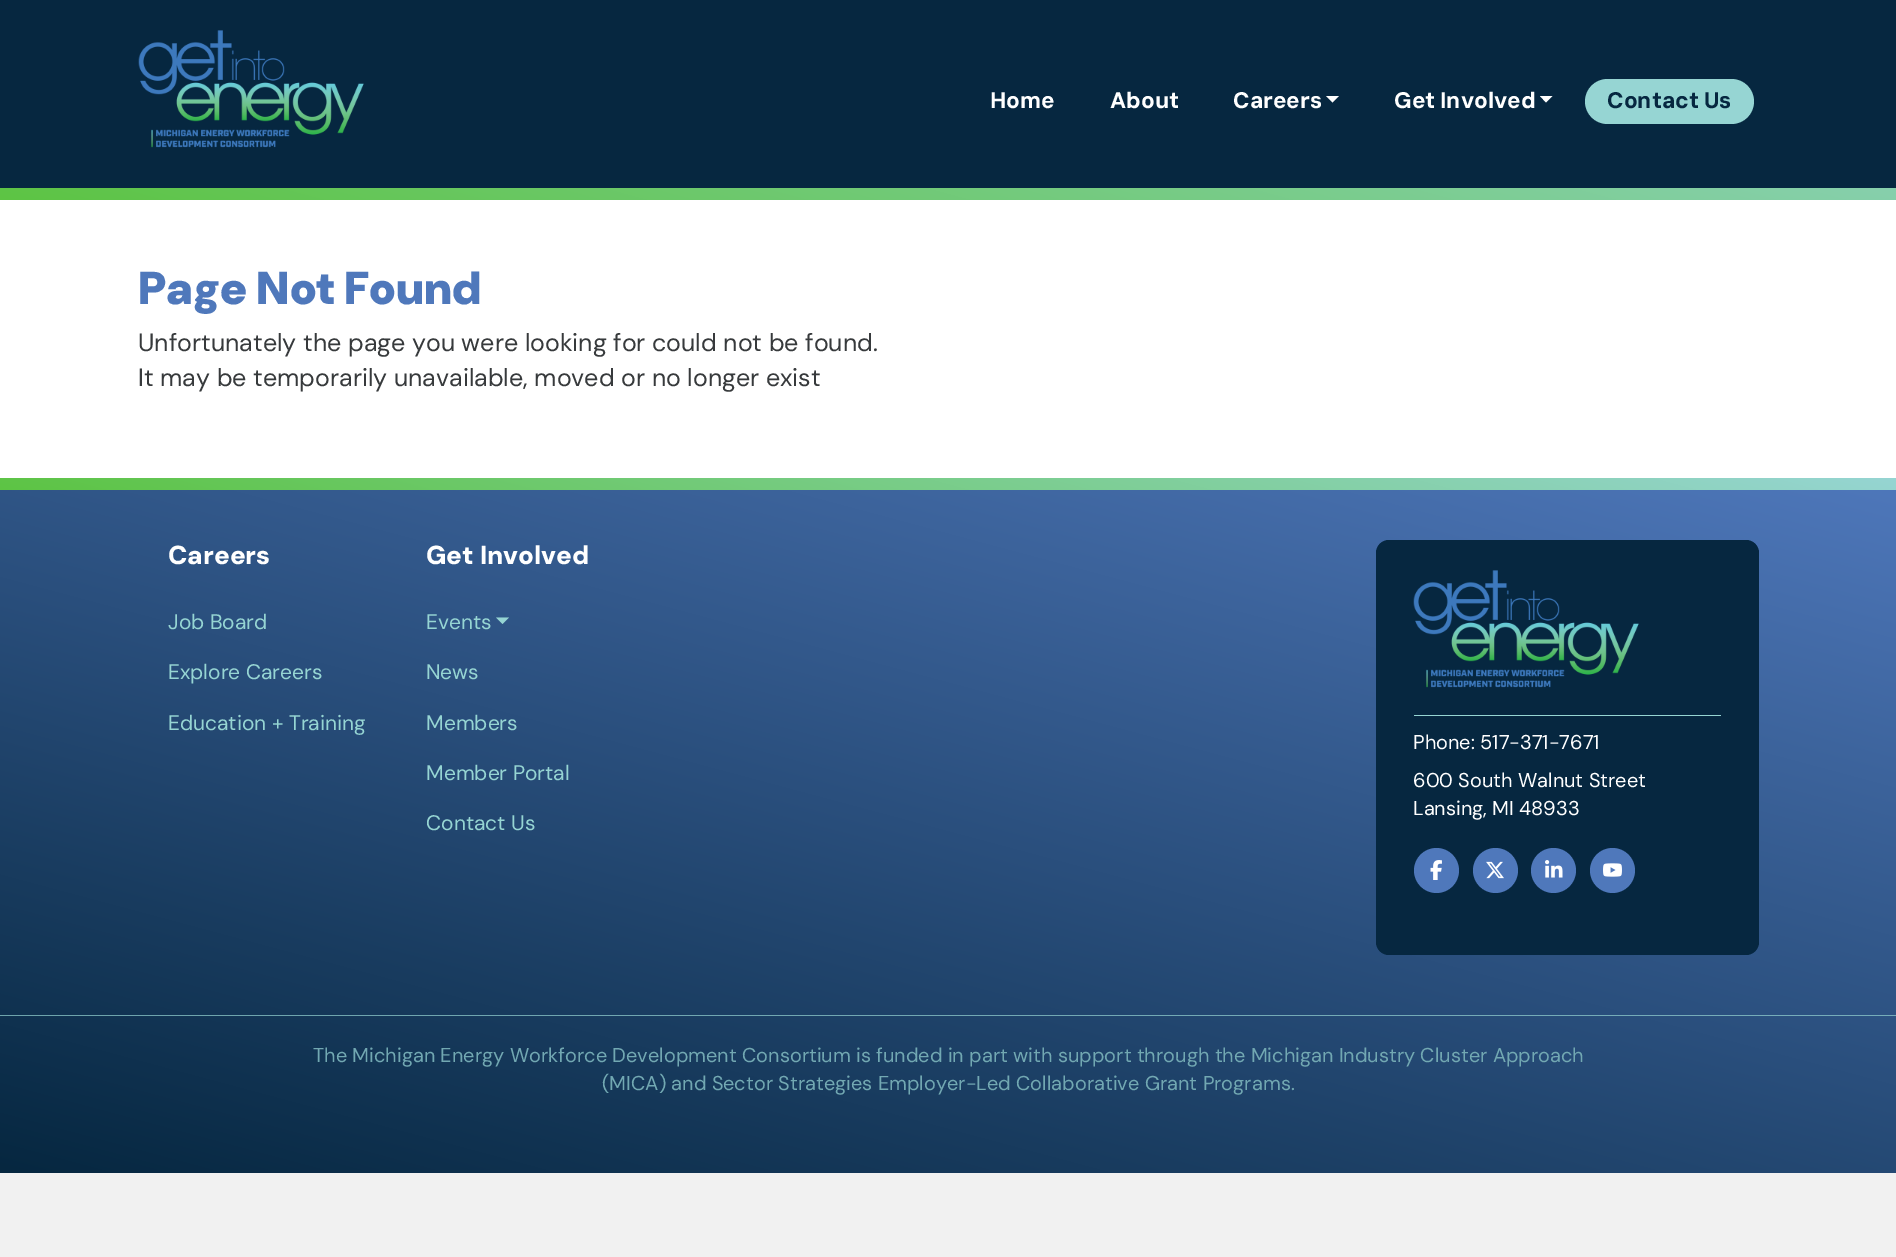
%!PS
<< /PageSize [1896 1257] >> setpagedevice
/rgb { dup -16 bitshift 255 div exch dup -8 bitshift 255 and 255 div exch 255 and 255 div setrgbcolor } def
/font { [ exch dup neg 0 0 3 -1 roll 0 0 ] selectfont } def
/text { moveto show } def
/circle { newpath 0 360 arc closepath } def
/roundrect { 5 dict begin { /r /h /w /y /x } { exch def } forall
  x r add y moveto x w add y 2 copy h add r arct x w add y h add x 1 index r arct
  x y h add x y r arct x y 2 copy exch w add exch r arct closepath end } def
/picture { 5 dict begin { /h /w /y /x /name } { exch def } forall
  gsave x y translate w h scale
  w h 8 [w 0 0 h 0 0] name (r) file false 3 colorimage grestore end } def
0 1257 translate 1 -1 scale
4 setmiterlimit
/s1 { /DMSans-ExtraBold 22.5 font 16#FFFFFF rgb } def
/s2 { /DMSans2-Black 46 font 16#4F78BB rgb } def
/s3 { /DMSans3-Regular 25 font 16#373A3C rgb } def
/s4 { /DMSans-Black 26 font 16#FFFFFF rgb } def
/s5 { /DMSans-Regular 21 font 16#96D5D3 rgb } def
/s6 { /DMSans2-Regular 20 font 16#FFFFFF rgb } def
/s7 { /DMSans2-Regular 20 font 16#72A8B2 rgb } def
16#F1F1F1 rgb
0 0 1896 1257 rectfill
gsave 0 188 moveto 1896 188 lineto 1896 200 lineto 0 200 lineto closepath clip newpath
<< /ShadingType 2 /ColorSpace /DeviceRGB /Coords [860 430 1037 -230] /Extend [true true] /Function << /FunctionType 2 /Domain [0 1] /C0 [0.365 0.769 0.267] /C1 [0.588 0.835 0.827] /N 1 >> >> shfill grestore
16#062740 rgb
0 0 1896 188 rectfill
(pic1.raw) 138 30 226 118 picture
s1
(Home) 990 108 text
(About) 1110 108 text
(Careers) 1233 108 text
1326 96 moveto 1339 96 lineto 1332.5 102.5 lineto closepath fill
1394 108 moveto -1 0 32 (Get Involved) widthshow
1540 96 moveto 1552.5 96 lineto 1546 102.5 lineto closepath fill
16#96D5D3 rgb
1585 79 169 45 22.5 roundrect fill
16#062740 rgb
1607 108 moveto -1 0 32 (Contact Us) widthshow
16#FFFFFF rgb
0 200 1896 278 rectfill
s2
(Page Not Found) 138 304 text
s3
(Unfortunately the page you were looking for could not be found.) 138 351 text
(It may be temporarily unavailable, moved or no longer exist) 138 386 text
gsave 0 490 moveto 1896 490 lineto 1896 1173 lineto 0 1173 lineto closepath clip newpath
<< /ShadingType 2 /ColorSpace /DeviceRGB /Coords [1099 264 798 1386] /Extend [true true] /Function << /FunctionType 2 /Domain [0 1] /C0 [0.31 0.471 0.733] /C1 [0.024 0.153 0.251] /N 1 >> >> shfill grestore
gsave 0 1015 moveto 1896 1015 lineto 1896 1016 lineto 0 1016 lineto closepath clip newpath
<< /ShadingType 2 /ColorSpace /DeviceRGB /Coords [1099 264 798 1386] /Extend [true true] /Function << /FunctionType 2 /Domain [0 1] /C0 [0.506 0.725 0.8] /C1 [0.42 0.631 0.655] /N 1 >> >> shfill grestore
gsave 0 478 moveto 1896 478 lineto 1896 490 lineto 0 490 lineto closepath clip newpath
<< /ShadingType 2 /ColorSpace /DeviceRGB /Coords [883 727 1013 241] /Extend [true true] /Function << /FunctionType 2 /Domain [0 1] /C0 [0.365 0.769 0.267] /C1 [0.588 0.835 0.827] /N 1 >> >> shfill grestore
s4
(Careers) 168 564 text
s5
(Job Board) 168 629 text
(Explore Careers) 168 679 text
(Education + Training) 168 730 text
s4
(Get Involved) 426 564 text
s5
(Events) 426 629 text
496 617.5 moveto 509 617.5 lineto 502.5 624 lineto closepath fill
(News) 426 679 text
(Members) 426 730 text
(Member Portal) 426 780 text
(Contact Us) 426 830 text
16#062740 rgb
1376 540 383 415 13 roundrect fill
(pic1.raw) 1413 570 226 118 picture
16#96D5D3 rgb
1414 715 307 1 rectfill
s6
(Phone: 517-371-7671) 1413 749 text
(600 South Walnut Street) 1413 787 text
(Lansing, MI 48933) 1413 815 text
16#4F78BB rgb
1436.5 870.5 22.5 circle fill
(pic2.raw) 1430 860 12 20 picture
1495.5 870.5 22.5 circle fill
(pic3.raw) 1486 861 18 18 picture
1553.5 870.5 22.5 circle fill
(pic4.raw) 1545 860 18 18 picture
1612.5 870.5 22.5 circle fill
(pic5.raw) 1603 863 19 14 picture
s7
(The Michigan Energy Workforce Development Consortium is funded in part with support through the Michigan Industry Cluster Approach) 313 1062 text
(\(MICA\) and Sector Strategies Employer-Led Collaborative Grant Programs.) 602 1090 text
showpage
